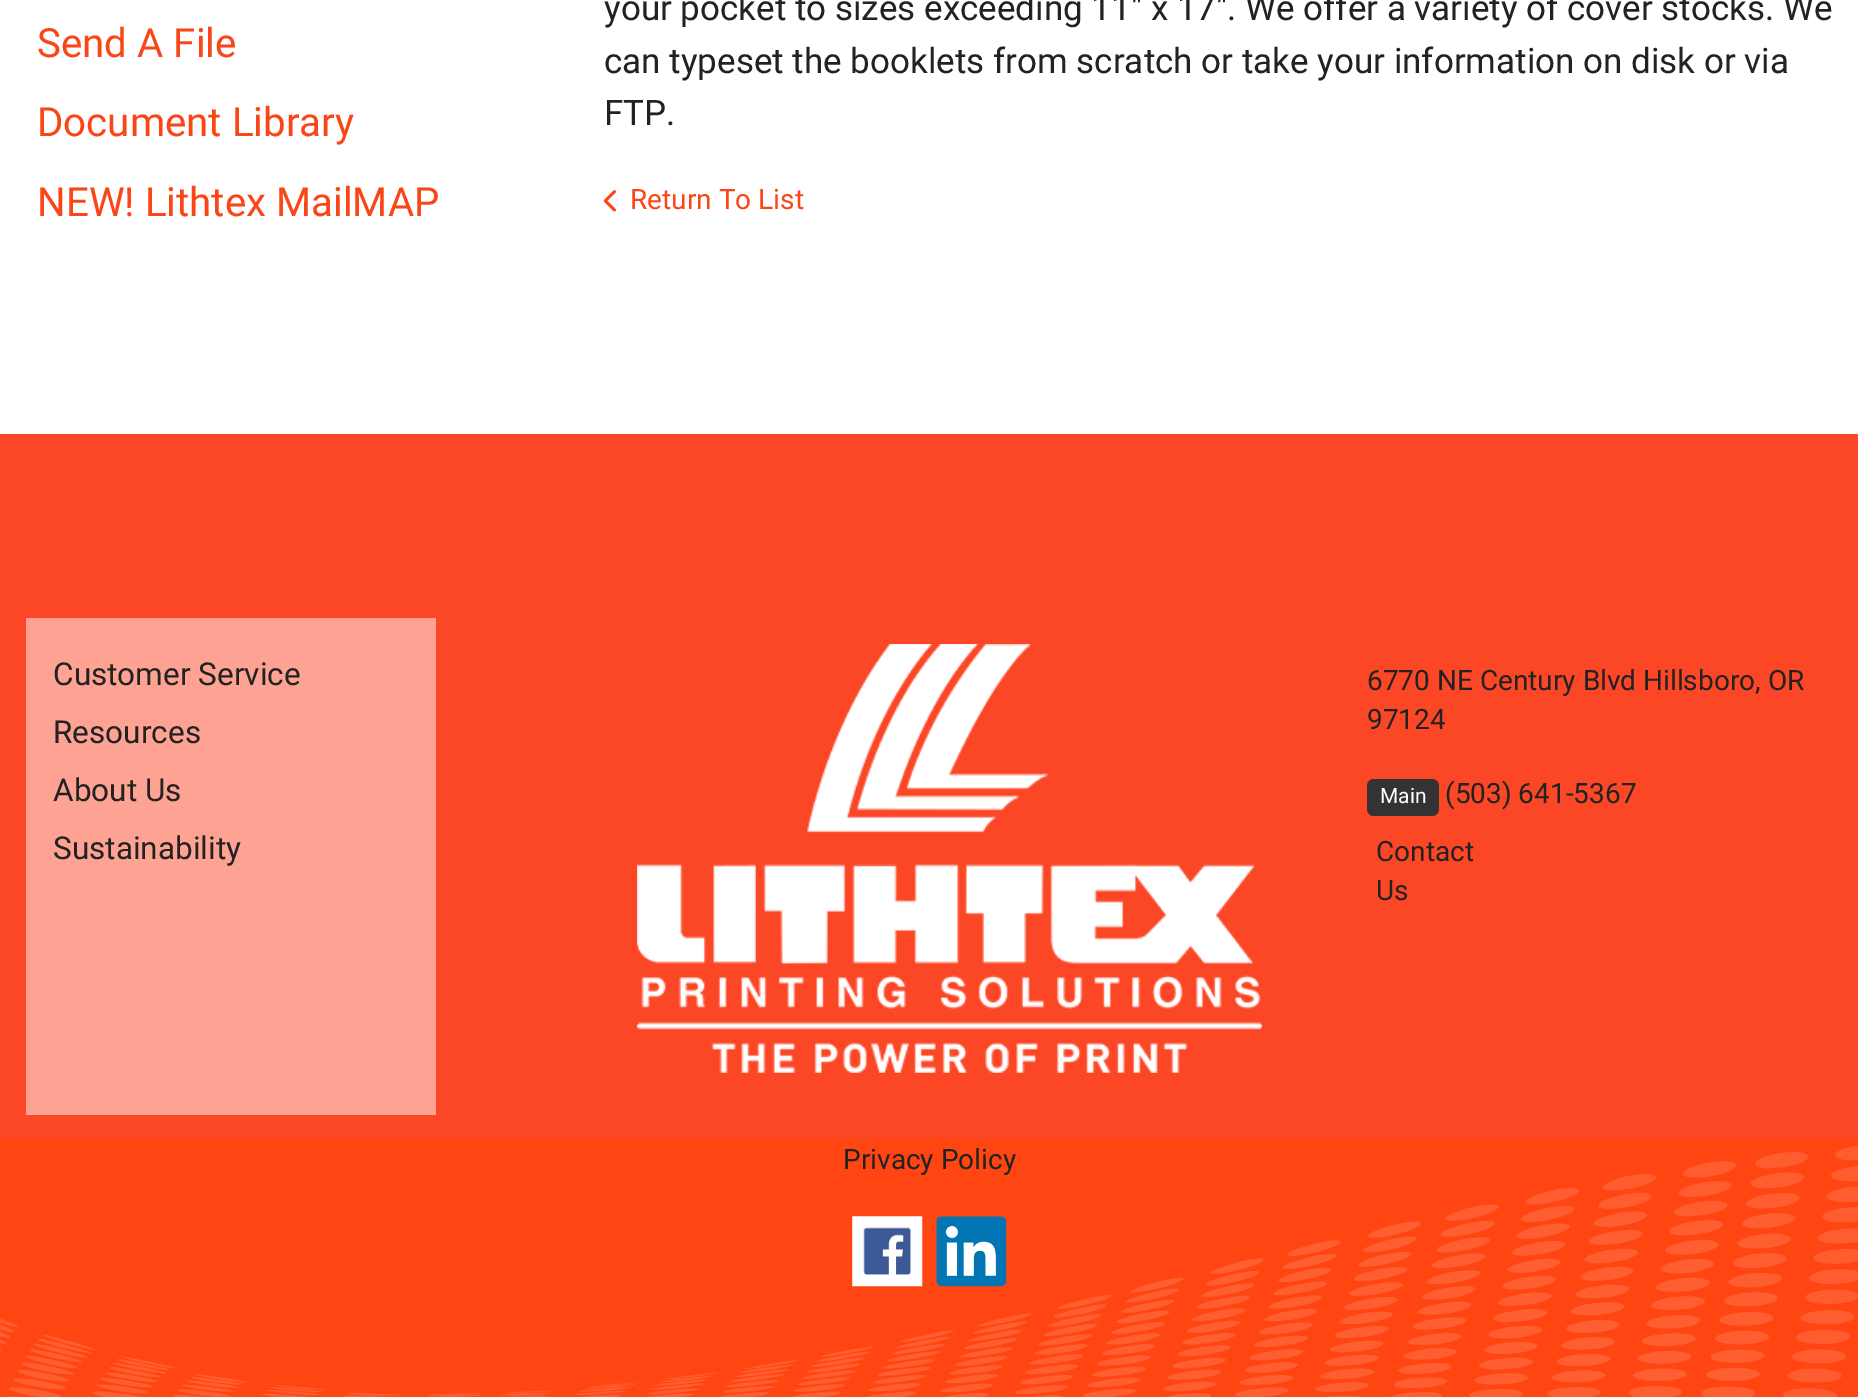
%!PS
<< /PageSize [1858 1397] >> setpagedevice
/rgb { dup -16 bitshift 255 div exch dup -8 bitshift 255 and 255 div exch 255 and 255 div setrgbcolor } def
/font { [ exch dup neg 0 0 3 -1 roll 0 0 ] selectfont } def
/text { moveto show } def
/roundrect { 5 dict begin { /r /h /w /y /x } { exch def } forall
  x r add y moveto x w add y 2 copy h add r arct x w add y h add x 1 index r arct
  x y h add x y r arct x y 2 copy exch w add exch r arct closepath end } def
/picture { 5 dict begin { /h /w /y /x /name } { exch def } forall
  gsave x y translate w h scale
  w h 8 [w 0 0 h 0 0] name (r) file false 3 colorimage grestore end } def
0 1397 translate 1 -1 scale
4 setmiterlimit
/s1 { /Roboto-Regular 40.25 font 16#FA4616 rgb } def
/s2 { /Roboto-Regular 35 font 16#222222 rgb } def
/s3 { /Roboto-Regular 28 font 16#FA4616 rgb } def
/s4 { /Roboto-Regular 31.5 font 16#222222 rgb } def
/s5 { /Roboto-Regular 28 font 16#222222 rgb } def
/s6 { /Roboto-Regular 21 font 16#FFFFFF rgb } def
16#FFFFFF rgb
0 0 1858 1397 rectfill
s1
(Send A File) 37 57 text
(Document Library) 37 136 text
(NEW! Lithtex MailMAP) 37 216 text
s2
(your pocket to sizes exceeding 11" x 17". We offer a variety of cover stocks. We) 604 20 text
(can typeset the booklets from scratch or take your information on disk or via) 604 73 text
(FTP.) 604 125 text
(pic1.raw) 603 190 13 22 picture
s3
(Return To List) 630 209 text
16#FC4726 rgb
0 434 1858 963 rectfill
(pic2.raw) 0 1138 1858 259 picture
16#FEA393 rgb
26 618 410 497 rectfill
s4
(Customer Service) 53 685 text
(Resources) 53 743 text
(About Us) 53 801 text
(Sustainability) 53 859 text
(pic3.raw) 637 644 625 429 picture
s5
(6770 NE Century Blvd Hillsboro, OR) 1367 690 text
(97124) 1367 729 text
16#333333 rgb
1367 779 72 37 7 roundrect fill
s6
(Main) 1380 803 text
s5
(\(503\) 641-5367) 1445 803 text
(Contact) 1376 861 text
(Us) 1376 900 text
(Privacy Policy) 843 1169 text
(pic4.raw) 852 1216 71 71 picture
(pic5.raw) 936 1216 71 71 picture
showpage
